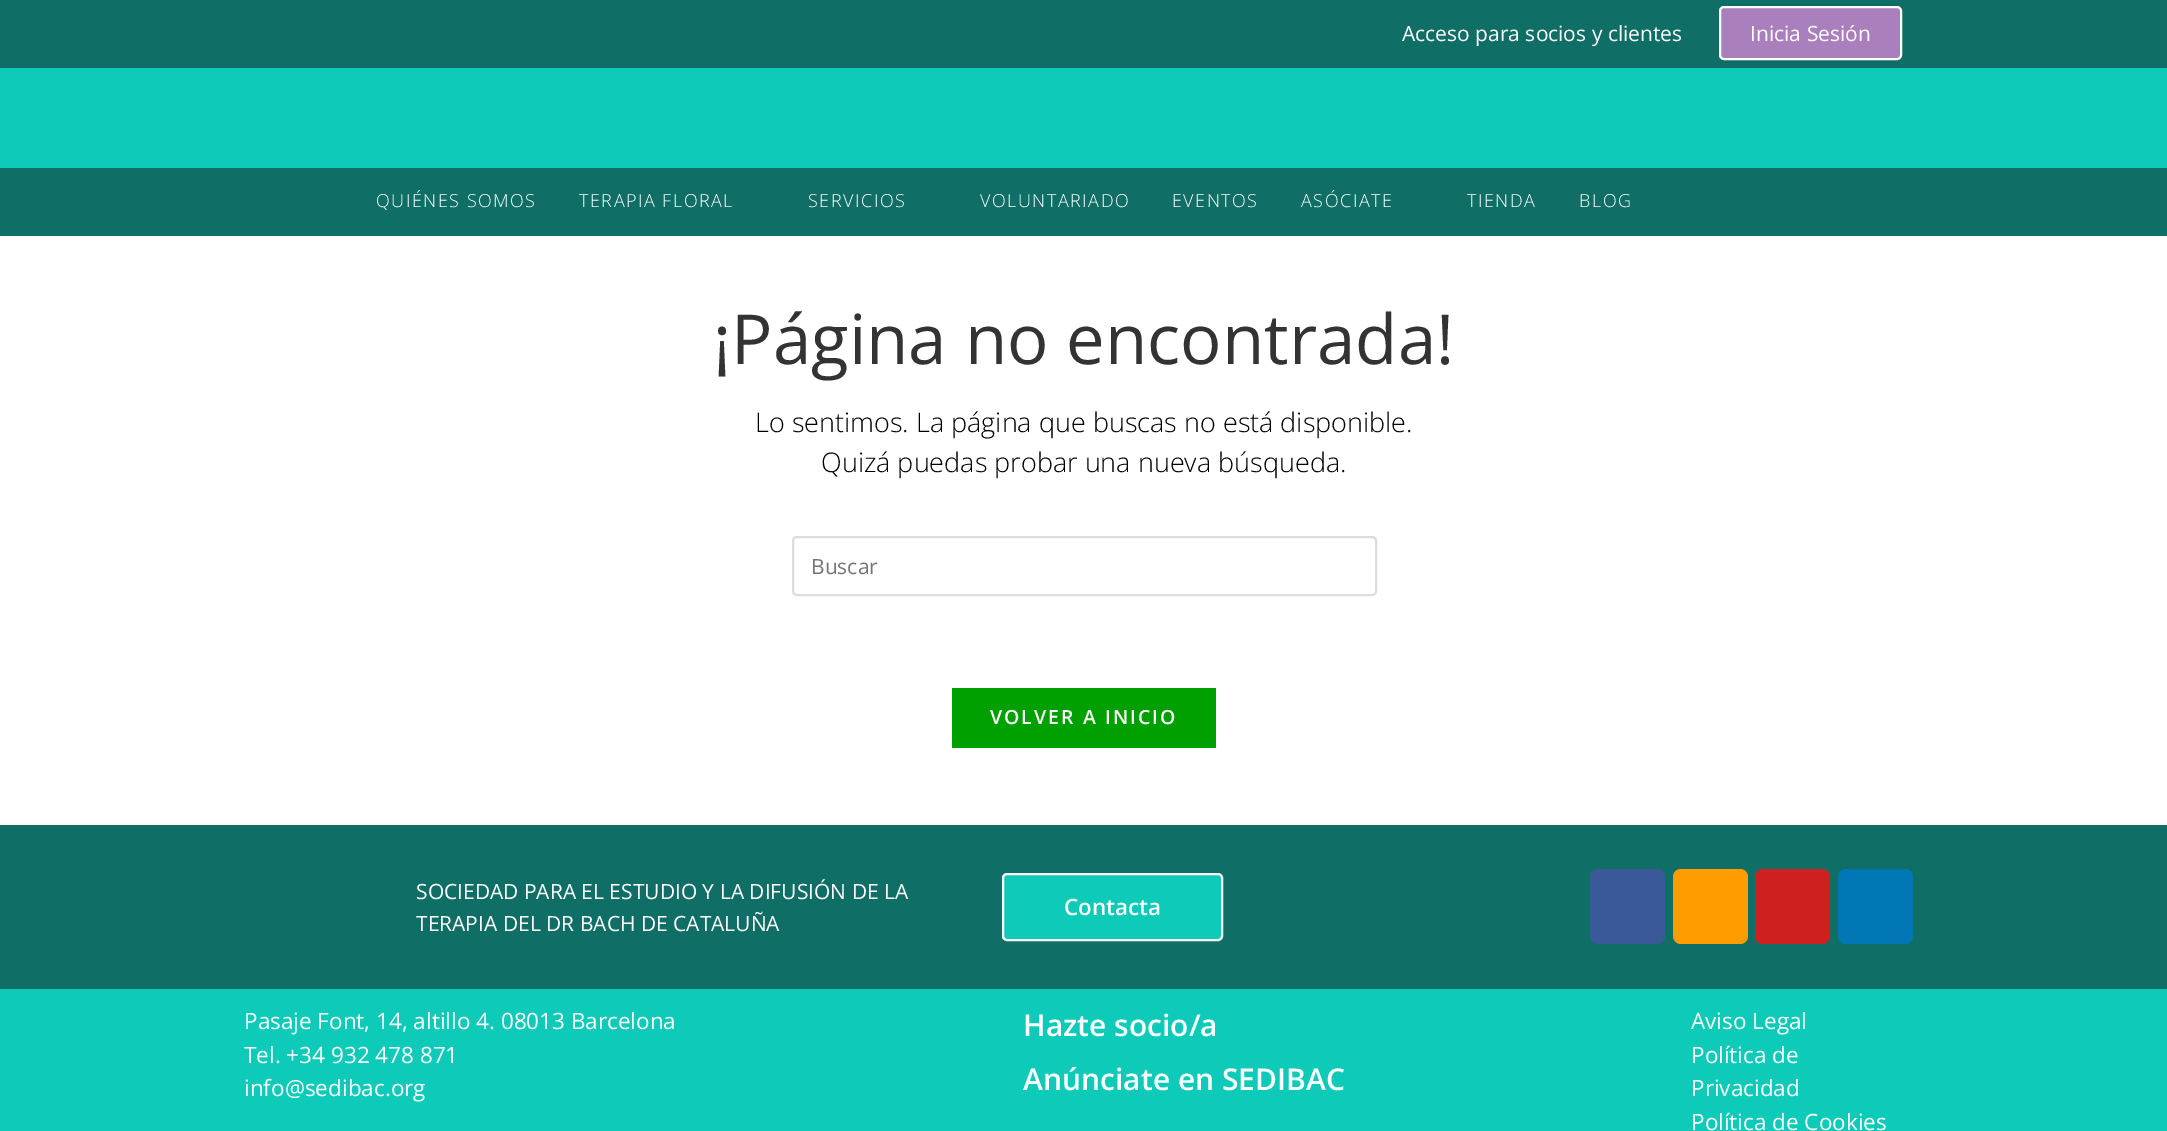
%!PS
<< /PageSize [2167 1131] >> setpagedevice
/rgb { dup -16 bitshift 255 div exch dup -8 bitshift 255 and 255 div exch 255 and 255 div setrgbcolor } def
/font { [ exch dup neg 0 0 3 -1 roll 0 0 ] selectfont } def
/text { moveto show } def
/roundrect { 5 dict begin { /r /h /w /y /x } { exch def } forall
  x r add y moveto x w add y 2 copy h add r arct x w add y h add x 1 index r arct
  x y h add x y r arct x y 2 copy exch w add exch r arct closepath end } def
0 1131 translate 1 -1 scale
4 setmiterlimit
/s1 { /OpenSans-Regular 21 font 16#FFFFFF rgb } def
/s2 { /OpenSans-Regular 69 font 16#333333 rgb } def
/s3 { /OpenSans-Light 27 font 16#000000 rgb } def
/s4 { /OpenSans-Regular 21 font 16#757575 rgb } def
/s5 { /OpenSans-SemiBold 22.5 font 16#FFFFFF rgb } def
/s6 { /OpenSans-Regular 22.5 font 16#FFFFFF rgb } def
/s7 { /OpenSans-SemiBold 30 font 16#FFFFFF rgb } def
16#FFFFFF rgb
0 0 2167 1131 rectfill
16#0F6F66 rgb
0 0 2167 68 rectfill
s1
(Acceso para socios y clientes) 1402 41 text
16#AA7FBD rgb
1720 7 181 52 4 roundrect gsave fill grestore
16#FFFFFF rgb
2 setlinewidth
stroke
(Inicia Sesión) 1750 41 text
16#0DCBB8 rgb
0 68 2167 100 rectfill
16#0F6F66 rgb
0 168 2167 68 rectfill
/OpenSans-Light 18 font
16#FFFFFF rgb
376 207 moveto 1.5 0 (QUIÉNES SOMOS) ashow
579 207 moveto 1.5 0 (TERAPIA FLORAL) ashow
808 207 moveto 1.5 0 (SERVICIOS) ashow
980 207 moveto 1.5 0 (VOLUNTARIADO) ashow
1172 207 moveto 1.5 0 (EVENTOS) ashow
1301 207 moveto 1.5 0 (ASÓCIATE) ashow
1467 207 moveto 1.5 0 (TIENDA) ashow
1579 207 moveto 1.5 0 (BLOG) ashow
s2
(¡Página no encontrada!) 713 364 text
s3
(Lo sentimos. La página que buscas no está disponible.) 755 432 text
(Quizá puedas probar una nueva búsqueda.) 821 472 text
16#DDDDDD rgb
793 537 583 58 4 roundrect stroke
s4
(Buscar) 811 574 text
16#00A000 rgb
952 688 264 60 rectfill
/OpenSans-SemiBold 19.5 font
16#FFFFFF rgb
990 724 moveto 2 0 (VOLVER A INICIO) ashow
16#0DCBB8 rgb
0 989 2167 142 rectfill
16#0F6F66 rgb
0 825 2167 164 rectfill
s1
(SOCIEDAD PARA EL ESTUDIO Y LA DIFUSIÓN DE LA) 416 899 text
(TERAPIA DEL DR BACH DE CATALUÑA) 416 931 text
16#0DCBB8 rgb
1003 874 219 66 4 roundrect gsave fill grestore
16#FFFFFF rgb
stroke
s5
(Contacta) 1064 915 text
16#3B5998 rgb
1590 869 75 75 8 roundrect fill
16#FF9C00 rgb
1673 869 75 75 8 roundrect fill
16#CD201F rgb
1755 869 75 75 8 roundrect fill
16#0077B5 rgb
1838 869 75 75 8 roundrect fill
s6
(Pasaje Font, 14, altillo 4. 08013 Barcelona) 244 1029 text
(Tel. +34 932 478 871) 244 1063 text
(info@sedibac.org) 244 1096 text
s7
(Hazte socio/a) 1023 1036 text
(Anúnciate en SEDIBAC) 1023 1090 text
s6
(Aviso Legal) 1691 1029 text
(Política de) 1691 1063 text
(Privacidad) 1691 1096 text
(Política de Cookies) 1691 1130 text
showpage
